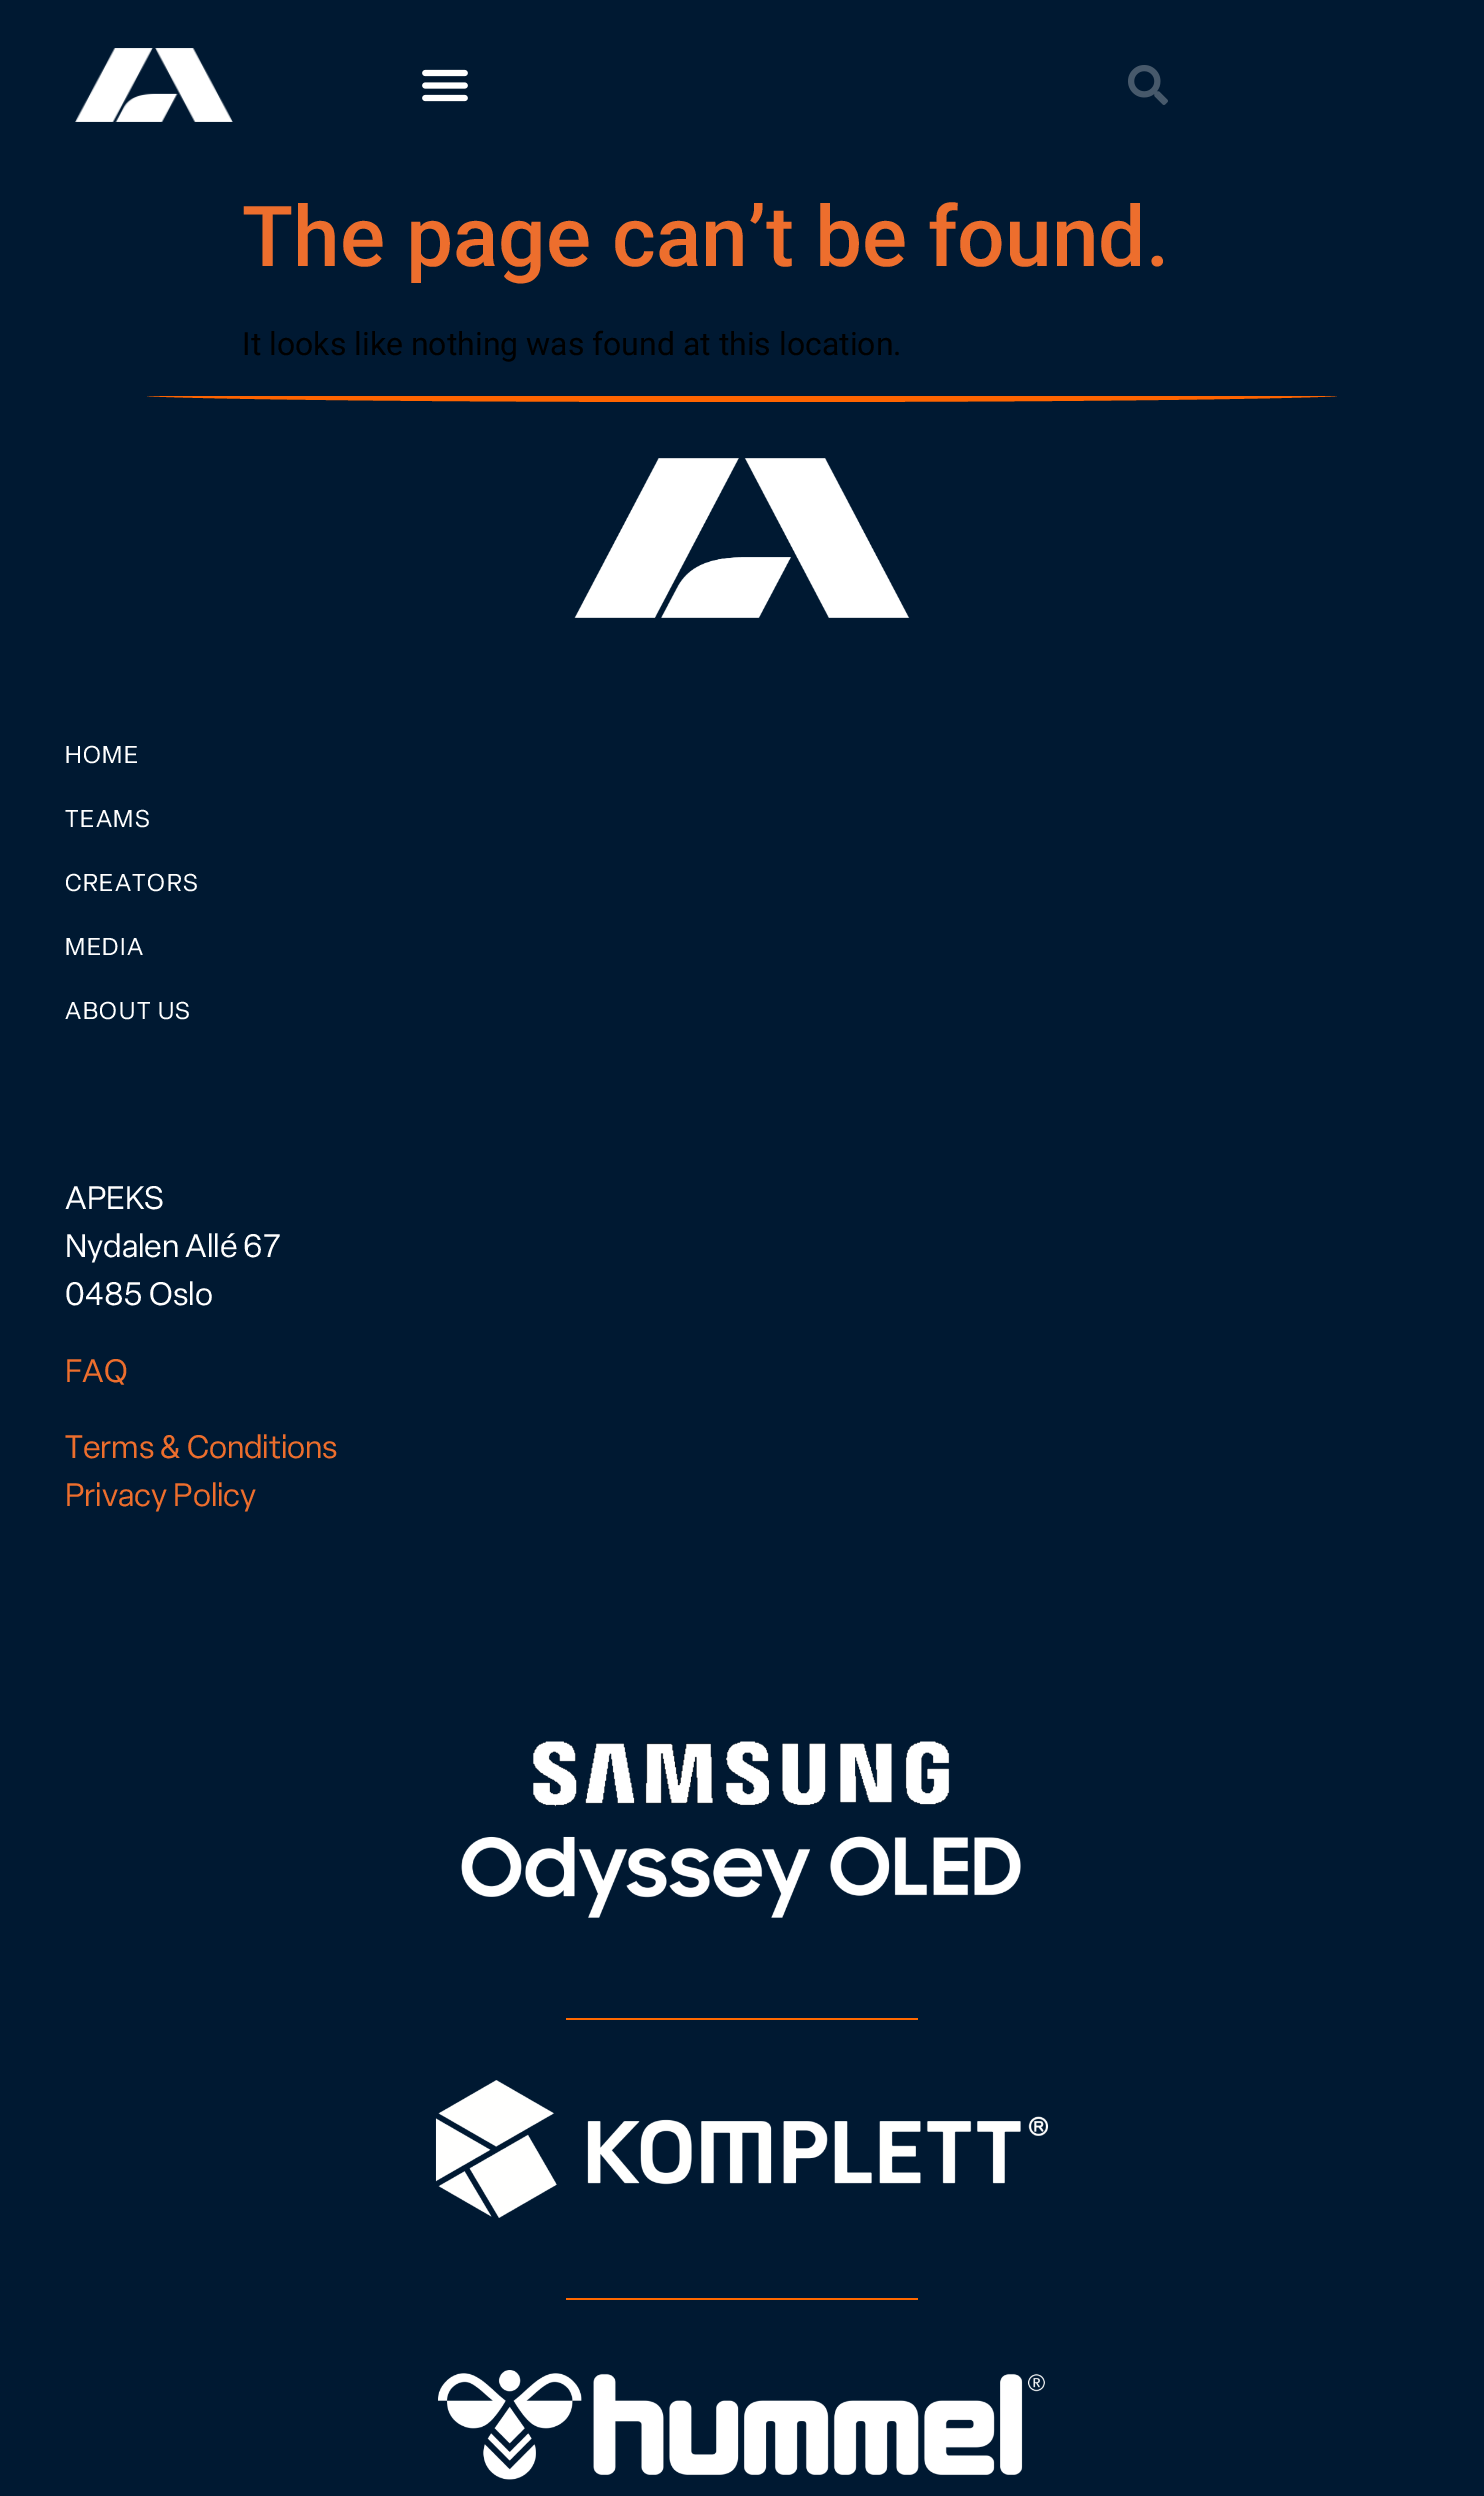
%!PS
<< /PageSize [1484 2496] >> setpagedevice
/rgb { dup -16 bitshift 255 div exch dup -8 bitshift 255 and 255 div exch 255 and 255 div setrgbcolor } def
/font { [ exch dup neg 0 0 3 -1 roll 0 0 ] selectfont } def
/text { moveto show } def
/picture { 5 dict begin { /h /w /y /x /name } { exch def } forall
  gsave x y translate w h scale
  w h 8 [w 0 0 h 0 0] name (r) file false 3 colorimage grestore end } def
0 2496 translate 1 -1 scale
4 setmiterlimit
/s1 { /Roboto-Medium 84 font 16#ED6E2D rgb } def
/s2 { /Roboto-Regular 32 font 16#000000 rgb } def
/s3 { /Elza-Regular 32 font 16#FFFFFF rgb } def
/s4 { /Elza-Regular 32 font 16#ED6E2D rgb } def
16#001932 rgb
0 0 1484 2496 rectfill
(pic1.raw) 75 48 158 74 picture
(pic2.raw) 422 69 46 33 picture
(pic3.raw) 1128 65 40 40 picture
s1
(The page can’t be found.) 242 266 text
s2
(It looks like nothing was found at this location.) 242 355 text
16#FF6400 rgb
1337 396 moveto 147 396 lineto 148 397 298 402 742 402 curveto 1186 402 1337 397 1337 396 curveto closepath fill
(pic4.raw) 574 458 336 160 picture
/Elza-Regular 24 font
16#FFFFFF rgb
65 763 moveto 1.5 0 (HOME) ashow
65 827 moveto 1.5 0 (TEAMS) ashow
65 891 moveto 1.5 0 (CREATORS) ashow
65 955 moveto 1.5 0 (MEDIA) ashow
65 1019 moveto 1.5 0 (ABOUT US) ashow
s3
(APEKS) 65 1209 text
(Nydalen Allé 67) 65 1257 text
(0485 Oslo) 65 1305 text
s4
(FAQ) 65 1382 text
(Terms & Conditions) 65 1458 text
(Privacy Policy) 65 1506 text
(pic5.raw) 461 1741 560 177 picture
16#FF6800 rgb
566 2018 352 2 rectfill
(pic6.raw) 435 2080 614 138 picture
566 2298 352 2 rectfill
(pic7.raw) 438 2370 607 110 picture
showpage
